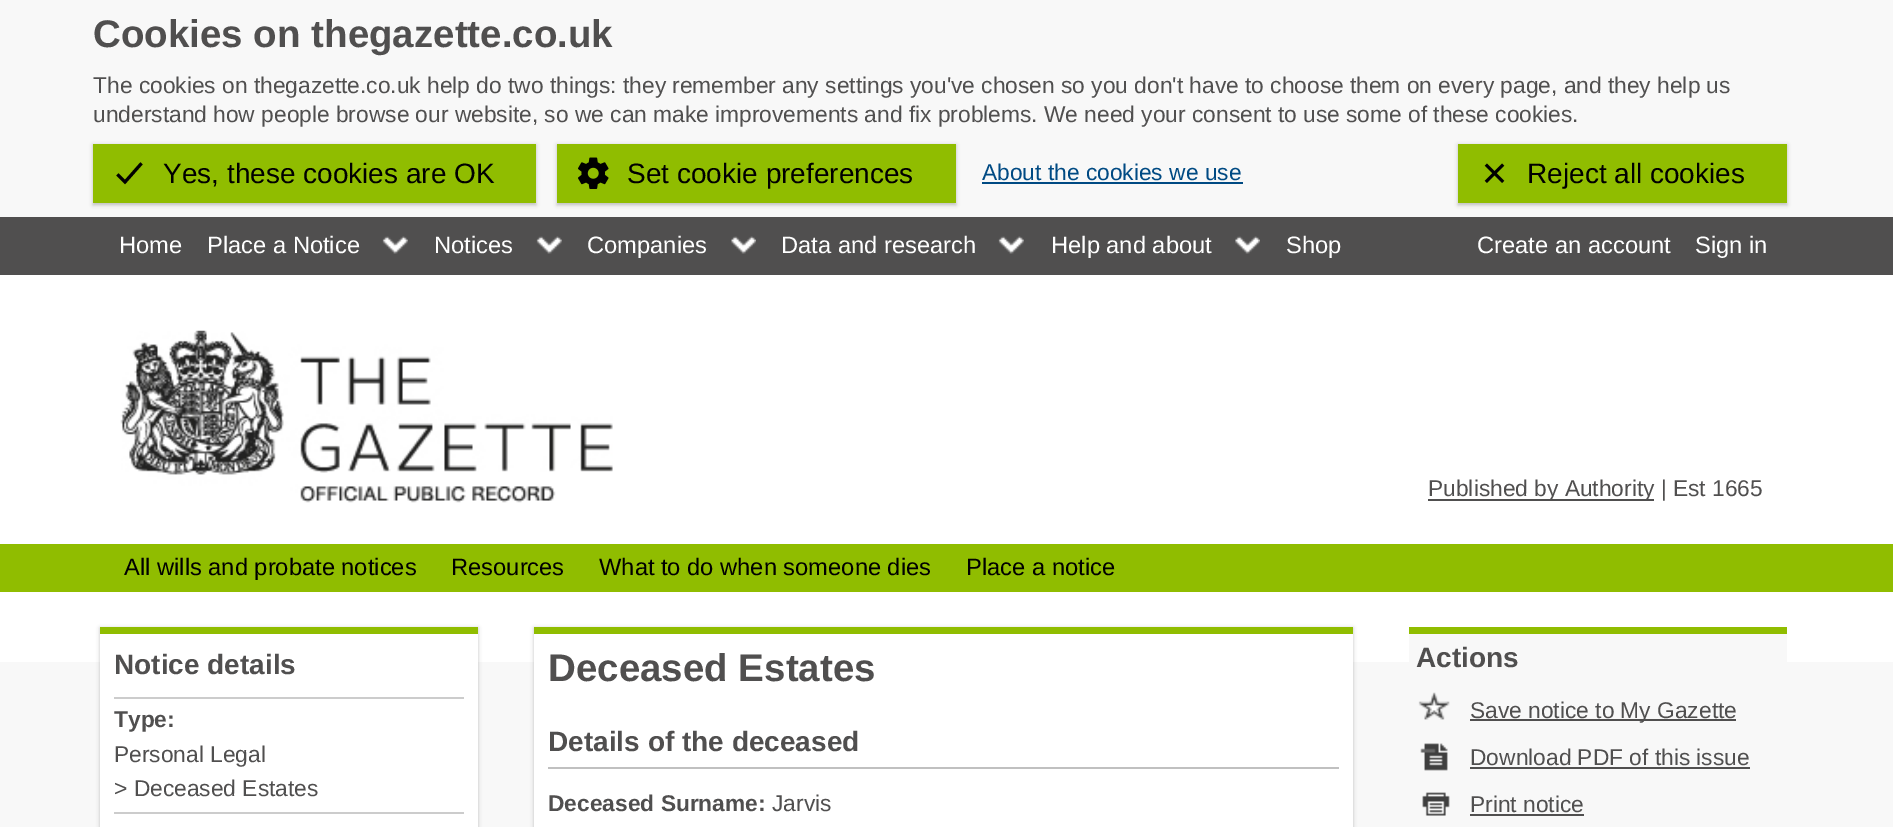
%!PS
<< /PageSize [1893 827] /PageUsesTransparency true >> setpagedevice
/rgb { dup -16 bitshift 255 div exch dup -8 bitshift 255 and 255 div exch 255 and 255 div setrgbcolor } def
/font { [ exch dup neg 0 0 3 -1 roll 0 0 ] selectfont } def
/text { moveto show } def
/alpha { dup .setfillconstantalpha .setstrokeconstantalpha } def
/roundrect { 5 dict begin { /r /h /w /y /x } { exch def } forall
  x r add y moveto x w add y 2 copy h add r arct x w add y h add x 1 index r arct
  x y h add x y r arct x y 2 copy exch w add exch r arct closepath end } def
/shadow { 12 dict begin { /a /b /q /h /w /y /x } { exch def } forall gsave /was 0 def
  9 -2 -9 { dup b mul 4 div /e exch def 1 sub .425 mul 2.718 exch exp 1 add a .99 .min exch div /now exch def
    1 1 now sub 1 was sub div sub alpha /was now def
    w h .min e 2 mul add 0 gt { x e sub y e sub w e 2 mul add h e 2 mul add
      q e add b .6 mul add w h .min 2 div e add .min 0 .max roundrect fill } if } for grestore end } def
/picture { 5 dict begin { /h /w /y /x /name } { exch def } forall
  gsave x y translate w h scale
  w h 8 [w 0 0 h 0 0] name (r) file false 3 colorimage grestore end } def
0 .pushpdf14devicefilter
0 827 translate 1 -1 scale
4 setmiterlimit
/s1 { /LiberationSans-Bold 38.5 font 16#504F4F rgb } def
/s2 { /LiberationSans-Regular 22.75 font 16#504F4F rgb } def
/s3 { /LiberationSans-Regular 28 font 16#000000 rgb } def
/s4 { /LiberationSans-Regular 22.75 font 16#004A83 rgb } def
/s5 { /LiberationSans-Regular 23.7 font 16#FFFFFF rgb } def
/s6 { /LiberationSans-Regular 23.7 font 16#000000 rgb } def
/s7 { /LiberationSans-Bold 28 font 16#504F4F rgb } def
/s8 { /LiberationSans-Bold 22.75 font 16#504F4F rgb } def
16#F8F8F8 rgb
0 0 1893 827 rectfill
s1
(Cookies on thegazette.co.uk) 93 47 text
s2
(The cookies on thegazette.co.uk help do two things: they remember any settings you've chosen so you don't have to choose them on every page, and they help us) 93 93 text
(understand how people browse our website, so we can make improvements and fix problems. We need your consent to use some of these cookies.) 93 122 text
16#323232 rgb
93 145 443 60 0 2 0.3 shadow
16#90BD00 rgb
93 144 443 59 rectfill
16#000000 rgb
3 setlinewidth
2 setlinecap
140.5 164.5 moveto 125 182 lineto 118.5 175.5 lineto stroke
s3
(Yes, these cookies are OK) 163 183 text
16#323232 rgb
557 145 399 60 0 2 0.3 shadow
16#90BD00 rgb
557 144 399 59 rectfill
(pic1.raw) 578 157 31 32 picture
s3
(Set cookie preferences) 627 183 text
s4
(About the cookies we use) 982 180 text
982 182 261 2 rectfill
16#323232 rgb
1458 145 329 60 0 2 0.3 shadow
16#90BD00 rgb
1458 144 329 59 rectfill
(pic2.raw) 1484 163 21 20 picture
s3
(Reject all cookies) 1527 183 text
16#504F4F rgb
0 217 1893 58 rectfill
s5
(Home) 119 253 text
(Place a Notice) 207 253 text
(pic3.raw) 382 236 26 18 picture
(Notices) 434 253 text
(pic4.raw) 536 236 26 18 picture
(Companies) 587 253 text
(pic5.raw) 731 236 25 18 picture
(Data and research) 781 253 text
(pic6.raw) 998 236 26 18 picture
(Help and about) 1051 253 text
(pic7.raw) 1235 236 25 18 picture
(Shop) 1286 253 text
(Create an account) 1477 253 text
(Sign in) 1695 253 text
0 275 1893 269 rectfill
(pic8.raw) 120 330 493 173 picture
16#504F4F rgb
1428 499 226 2 rectfill
s2
(Published by Authority | Est 1665) 1428 496 text
16#90BD00 rgb
0 544 1893 48 rectfill
s6
(All wills and probate notices) 124 575 text
(Resources) 451 575 text
(What to do when someone dies) 599 575 text
(Place a notice) 966 575 text
16#FFFFFF rgb
0 592 1893 70 rectfill
16#323232 rgb
100 628 378 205 0 2 0.3 shadow
16#FFFFFF rgb
100 634 378 193 rectfill
16#90BD00 rgb
100 627 378 7 rectfill
s7
(Notice details) 114 674 text
16#CCCCCC rgb
114 697 350 2 rectfill
s8
(Type:) 114 727 text
s2
(Personal Legal) 114 762 text
(> Deceased Estates) 114 796 text
16#CCCCCC rgb
114 812 350 2 rectfill
16#323232 rgb
534 628 819 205 0 2 0.3 shadow
16#FFFFFF rgb
534 634 819 193 rectfill
16#90BD00 rgb
534 627 819 7 rectfill
s1
(Deceased Estates) 548 681 text
s7
(Details of the deceased) 548 751 text
16#C0C0C0 rgb
548 767 791 2 rectfill
s8
(Deceased Surname:) 548 811 text
s2
(Jarvis) 772 811 text
16#F8F8F8 rgb
1409 634 378 28 rectfill
16#90BD00 rgb
1409 627 378 7 rectfill
s7
(Actions) 1416 667 text
(pic9.raw) 1418 692 32 28 picture
1470 719 266 2 rectfill
s2
(Save notice to My Gazette) 1470 718 text
(pic10.raw) 1420 743 28 28 picture
(Download PDF of this issue) 1470 765 text
1470 767 280 2 rectfill
(pic11.raw) 1422 792 28 24 picture
(Print notice) 1470 812 text
1470 814 114 2 rectfill
.poppdf14devicefilter showpage
